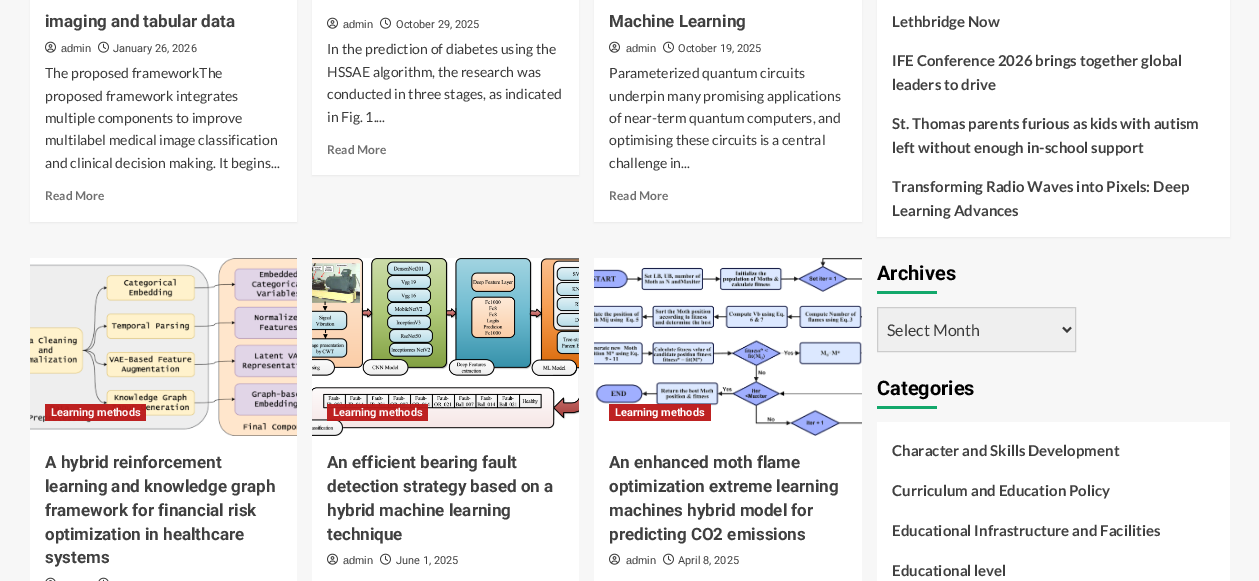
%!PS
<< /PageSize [1259 581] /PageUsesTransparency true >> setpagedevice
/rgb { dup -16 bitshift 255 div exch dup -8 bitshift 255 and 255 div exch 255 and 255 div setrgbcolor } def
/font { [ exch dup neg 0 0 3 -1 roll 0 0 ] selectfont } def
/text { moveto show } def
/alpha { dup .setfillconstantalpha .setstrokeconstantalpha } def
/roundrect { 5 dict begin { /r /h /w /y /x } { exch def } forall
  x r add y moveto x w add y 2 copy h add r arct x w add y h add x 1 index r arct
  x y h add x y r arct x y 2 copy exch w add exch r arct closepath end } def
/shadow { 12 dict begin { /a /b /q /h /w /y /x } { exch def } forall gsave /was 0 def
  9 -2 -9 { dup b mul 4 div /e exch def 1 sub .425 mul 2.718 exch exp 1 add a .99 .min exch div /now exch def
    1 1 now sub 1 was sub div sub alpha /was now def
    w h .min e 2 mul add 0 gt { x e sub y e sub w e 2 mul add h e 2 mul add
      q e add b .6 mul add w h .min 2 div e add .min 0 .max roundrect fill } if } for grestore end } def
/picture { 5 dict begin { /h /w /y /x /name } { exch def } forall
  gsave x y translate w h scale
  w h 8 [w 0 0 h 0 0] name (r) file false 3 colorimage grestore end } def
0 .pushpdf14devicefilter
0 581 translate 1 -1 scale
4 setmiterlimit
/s1 { /Roboto-Bold 17 font 16#404040 rgb } def
/s2 { /LiberationSans-Regular 11 font 16#404040 rgb } def
/s3 { /Roboto-Regular 11 font 16#404040 rgb } def
/s4 { /Lato-Regular 14 font 16#3A3A3A rgb } def
/s5 { /Lato-Bold 12 font 16#707070 rgb } def
/s6 { /Roboto-Bold 11 font 16#FCF6F6 rgb } def
/s7 { /Roboto-Bold 11 font 16#FFFFFF rgb } def
/s8 { /Lato-Bold 15 font 16#404040 rgb } def
/s9 { /Roboto-Bold 20 font 16#000000 rgb } def
/s10 { /Lato-Regular 16 font 16#3A3A3A rgb } def
16#F7F7F7 rgb
0 0 1259 581 rectfill
16#000000 rgb
30 -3 267 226 0 1 0.05 shadow
16#FFFFFF rgb
30 0 267 222 rectfill
s1
(imaging and tabular data) 45 27 text
(pic1.raw) 45 41 11 12 picture
s2
(admin) 61 52 text
(pic2.raw) 98 41 11 12 picture
s3
(January 26, 2026) 113 52 text
s4
(The proposed frameworkThe) 45 78 text
(proposed framework integrates) 45 101 text
(multiple components to improve) 45 123 text
(multilabel medical image classification) 45 145 text
(and clinical decision making. It begins...) 45 168 text
s5
(Read More) 45 200 text
16#000000 rgb
312 -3 267 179 0 1 0.05 shadow
16#FFFFFF rgb
312 0 267 175 rectfill
(pic1.raw) 327 17 11 12 picture
s2
(admin) 343 28 text
(pic2.raw) 380 17 11 12 picture
s3
(October 29, 2025) 396 28 text
s4
(In the prediction of diabetes using the) 327 54 text
(HSSAE algorithm, the research was) 327 77 text
(conducted in three stages, as indicated) 327 99 text
(in Fig. 1....) 327 122 text
s5
(Read More) 327 154 text
16#000000 rgb
594 -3 268 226 0 1 0.05 shadow
16#FFFFFF rgb
594 0 268 222 rectfill
s1
(Machine Learning) 609 27 text
(pic1.raw) 609 41 11 12 picture
s2
(admin) 626 52 text
(pic2.raw) 663 41 11 12 picture
s3
(October 19, 2025) 678 52 text
s4
(Parameterized quantum circuits) 609 78 text
(underpin many promising applications) 609 101 text
(of near-term quantum computers, and) 609 123 text
(optimising these circuits is a central) 609 145 text
(challenge in...) 609 168 text
s5
(Read More) 609 200 text
16#FFFFFF rgb
30 436 267 145 rectfill
(pic3.raw) 30 258 267 178 picture
0.96 alpha
16#BB1919 rgb
45 404 101 17 rectfill
1 alpha
s6
(Learning methods) 51 416 text
s1
(A hybrid reinforcement) 45 468 text
(learning and knowledge graph) 45 492 text
(framework for financial risk) 45 516 text
(optimization in healthcare) 45 540 text
(systems) 45 563 text
(pic4.raw) 45 577 11 4 picture
(pic5.raw) 98 577 11 4 picture
16#FFFFFF rgb
312 436 267 145 rectfill
(pic6.raw) 312 258 267 178 picture
0.96 alpha
16#BB1919 rgb
327 404 101 17 rectfill
1 alpha
s6
(Learning methods) 333 416 text
s1
(An efficient bearing fault) 327 468 text
(detection strategy based on a) 327 492 text
(hybrid machine learning) 327 516 text
(technique) 327 540 text
(pic1.raw) 327 553 11 12 picture
s2
(admin) 343 564 text
(pic2.raw) 380 553 11 12 picture
s3
(June 1, 2025) 396 564 text
16#FFFFFF rgb
594 436 268 145 rectfill
(pic7.raw) 594 258 268 178 picture
0.96 alpha
16#BB1919 rgb
609 404 102 17 rectfill
1 alpha
s7
(Learning methods) 615 416 text
s1
(An enhanced moth flame) 609 468 text
(optimization extreme learning) 609 492 text
(machines hybrid model for) 609 516 text
(predicting CO2 emissions) 609 540 text
(pic1.raw) 609 553 11 12 picture
s2
(admin) 626 564 text
(pic2.raw) 663 553 11 12 picture
s3
(April 8, 2025) 678 564 text
16#000000 rgb
877 -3 353 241 0 1 0.05 shadow
16#FFFFFF rgb
877 0 353 237 rectfill
s8
(Lethbridge Now) 892 27 text
(IFE Conference 2026 brings together global) 892 66 text
(leaders to drive) 892 90 text
(St. Thomas parents furious as kids with autism) 892 129 text
(left without enough in-school support) 892 153 text
(Transforming Radio Waves into Pixels: Deep) 892 192 text
(Learning Advances) 892 216 text
s9
(Archives) 877 280 text
16#12A86B rgb
877 291 60 3 rectfill
16#EFEFEF rgb
877.5 307.5 moveto 1075.5 307.5 lineto 1075.5 351.5 lineto 877.5 351.5 lineto closepath gsave fill grestore
16#CCCCCC rgb
stroke
16#3A3A3A rgb
2 setlinewidth
1063 327.5 moveto 1067 331.5 lineto 1071 327.5 lineto stroke
s10
(Select Month) 887 336 text
s9
(Categories) 877 395 text
16#12A86B rgb
877 406 60 3 rectfill
16#FFFFFF rgb
877 422 353 159 rectfill
s8
(Character and Skills Development) 892 456 text
(Curriculum and Education Policy) 892 496 text
(Educational Infrastructure and Facilities) 892 536 text
(Educational level) 892 576 text
.poppdf14devicefilter showpage
